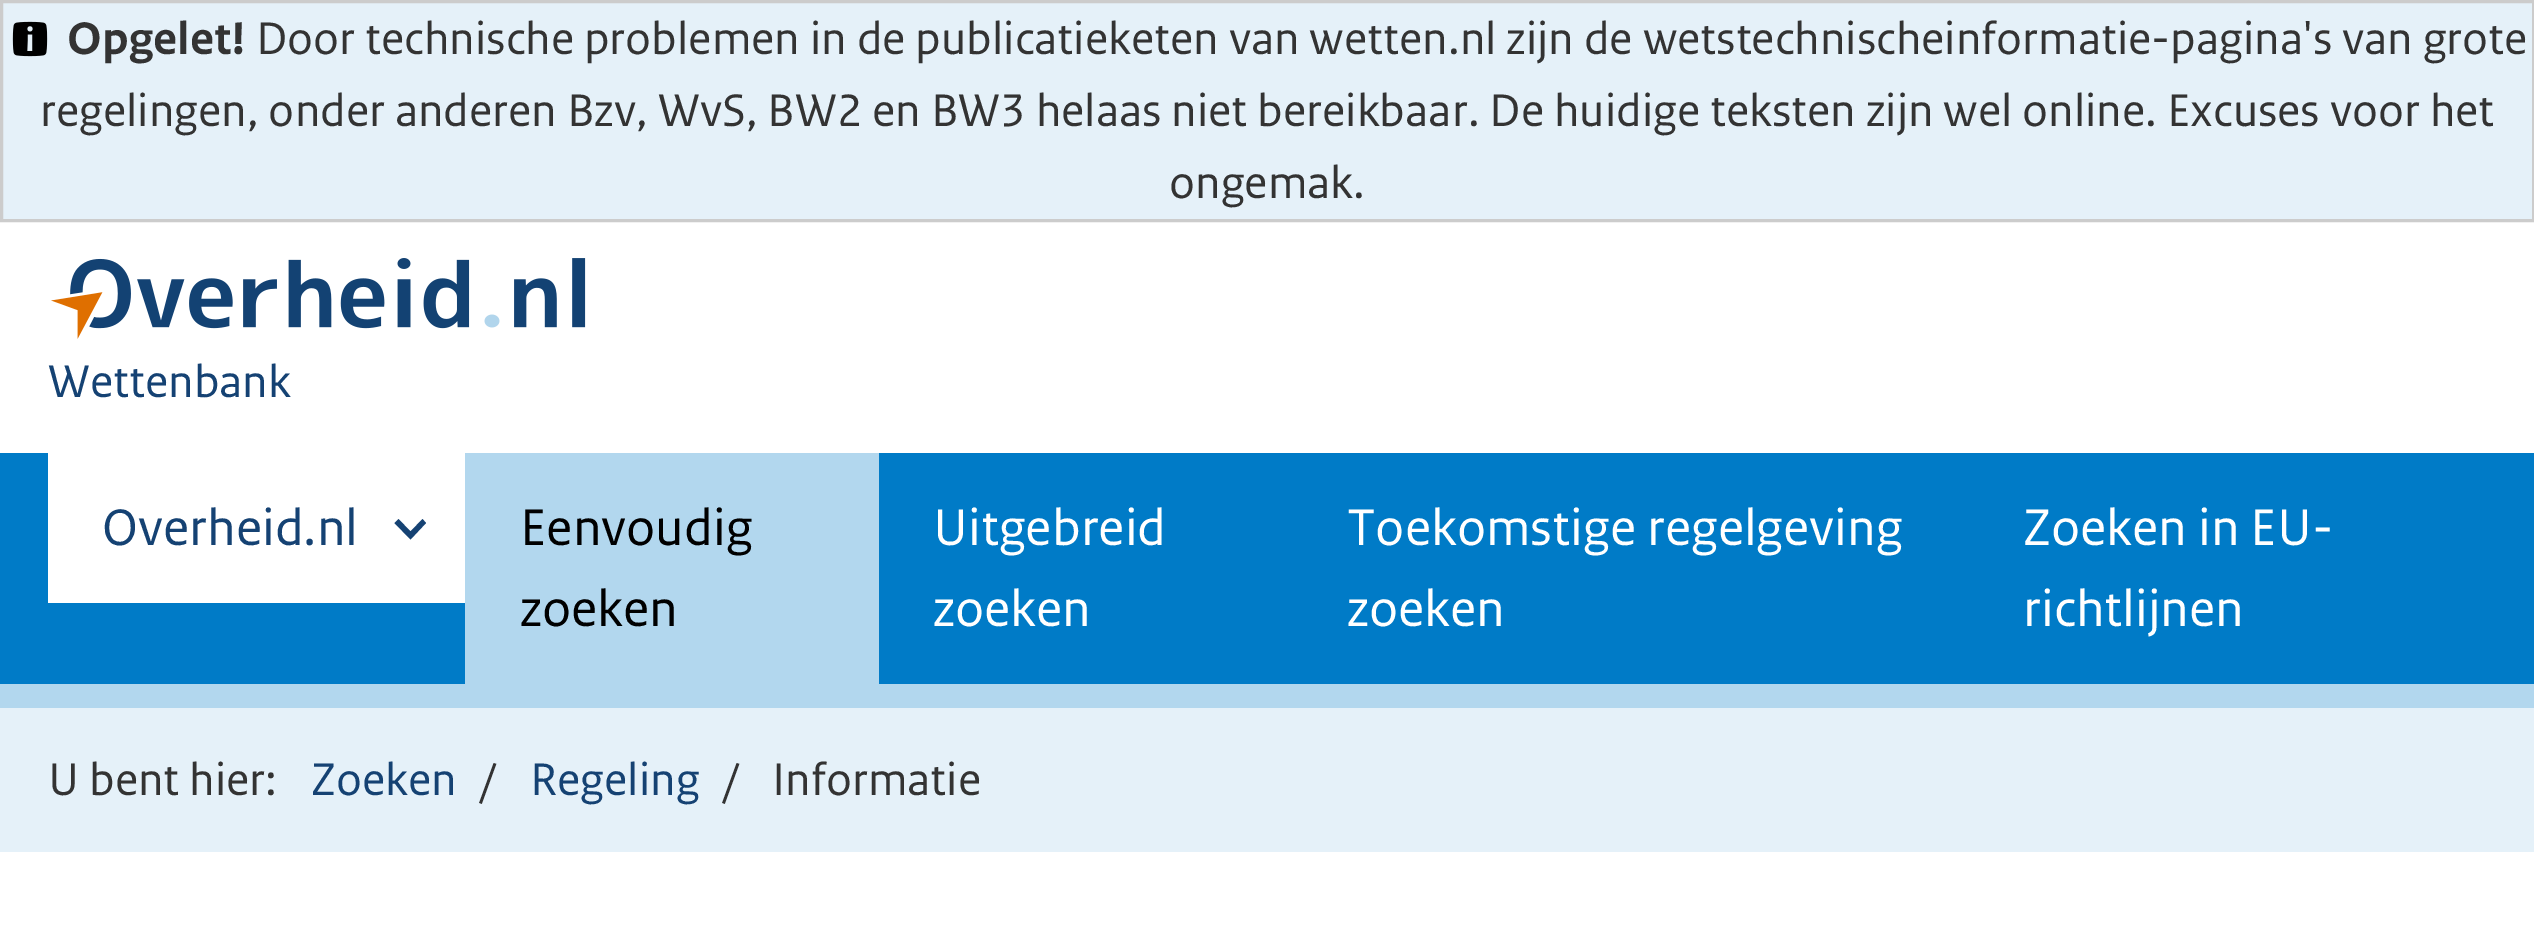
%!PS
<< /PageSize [2534 927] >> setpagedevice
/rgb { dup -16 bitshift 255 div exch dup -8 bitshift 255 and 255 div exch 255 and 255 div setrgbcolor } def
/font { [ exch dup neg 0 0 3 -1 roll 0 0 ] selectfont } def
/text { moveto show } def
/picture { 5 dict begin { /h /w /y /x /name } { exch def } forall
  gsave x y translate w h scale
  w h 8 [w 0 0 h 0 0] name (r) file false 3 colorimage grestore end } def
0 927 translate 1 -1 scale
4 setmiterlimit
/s1 { /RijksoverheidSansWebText-Bold 48 font 16#333333 rgb } def
/s2 { /RijksoverheidSansWebText-Regular 48 font 16#333333 rgb } def
/s3 { /RijksoverheidSansWebText-Regular 48 font 16#154273 rgb } def
/s4 { /RijksoverheidSansWebText-Regular 54 font 16#154273 rgb } def
/s5 { /RijksoverheidSansWebText-Regular 54 font 16#000000 rgb } def
/s6 { /RijksoverheidSansWebText-Regular 54 font 16#FFFFFF rgb } def
16#FFFFFF rgb
0 0 2534 927 rectfill
16#E5F1F9 rgb
1.5 1.5 moveto 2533.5 1.5 lineto 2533.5 220.5 lineto 1.5 220.5 lineto closepath gsave fill grestore
16#CCCCCC rgb
3 setlinewidth
stroke
(pic1.raw) 12 21 36 36 picture
s1
(Opgelet!) 67 54 text
s2
(Door technische problemen in de publicatieketen van wetten.nl zijn de wetstechnischeinformatie-pagina's van grote) 256 54 text
(regelingen, onder anderen Bzv, WvS, BW2 en BW3 helaas niet bereikbaar. De huidige teksten zijn wel online. Excuses voor het) 40 126 text
(ongemak.) 1169 198 text
16#B2D7EE rgb
0 684 2534 24 rectfill
(pic2.raw) 51 258 535 81 picture
s3
(Wettenbank) 48 397 text
16#007BC7 rgb
0 453 2534 231 rectfill
16#FFFFFF rgb
48 453 417 150 rectfill
16#154273 rgb
426 523 moveto 422.5 519 lineto 410.5 531.5 lineto 398.5 519 lineto 394.5 523 lineto 410.5 539.5 lineto closepath fill
s4
(Overheid.nl) 102 545 text
16#B2D7EE rgb
465 453 414 231 rectfill
s5
(Eenvoudig) 520 545 text
(zoeken) 520 626 text
s6
(Uitgebreid) 933 545 text
(zoeken) 933 626 text
(Toekomstige regelgeving) 1347 545 text
(zoeken) 1347 626 text
(Zoeken in EU-) 2023 545 text
(richtlijnen) 2023 626 text
16#E5F1F9 rgb
0 708 2534 144 rectfill
s2
(U bent hier:) 48 795 text
s3
(Zoeken) 311 795 text
s2
(/) 480 795 text
s3
(Regeling) 530 795 text
s2
(/) 723 795 text
(Informatie) 772 795 text
showpage
